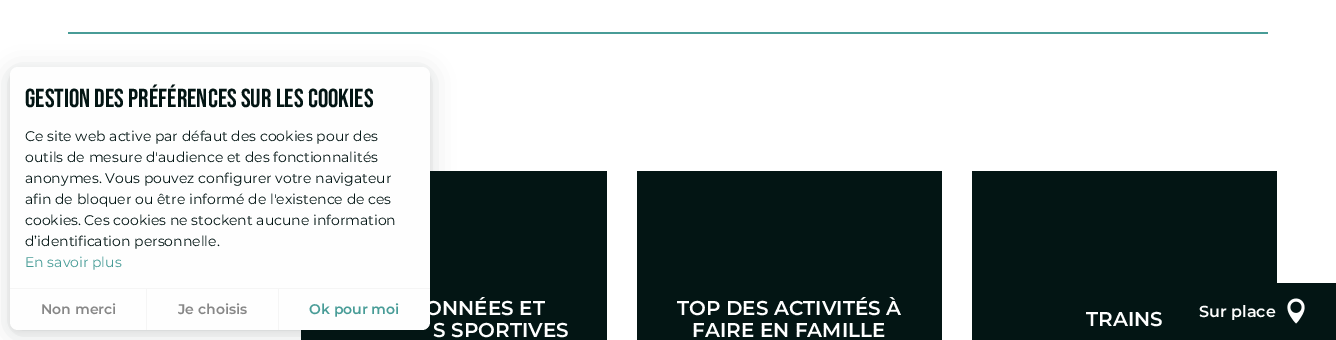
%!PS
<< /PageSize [1336 340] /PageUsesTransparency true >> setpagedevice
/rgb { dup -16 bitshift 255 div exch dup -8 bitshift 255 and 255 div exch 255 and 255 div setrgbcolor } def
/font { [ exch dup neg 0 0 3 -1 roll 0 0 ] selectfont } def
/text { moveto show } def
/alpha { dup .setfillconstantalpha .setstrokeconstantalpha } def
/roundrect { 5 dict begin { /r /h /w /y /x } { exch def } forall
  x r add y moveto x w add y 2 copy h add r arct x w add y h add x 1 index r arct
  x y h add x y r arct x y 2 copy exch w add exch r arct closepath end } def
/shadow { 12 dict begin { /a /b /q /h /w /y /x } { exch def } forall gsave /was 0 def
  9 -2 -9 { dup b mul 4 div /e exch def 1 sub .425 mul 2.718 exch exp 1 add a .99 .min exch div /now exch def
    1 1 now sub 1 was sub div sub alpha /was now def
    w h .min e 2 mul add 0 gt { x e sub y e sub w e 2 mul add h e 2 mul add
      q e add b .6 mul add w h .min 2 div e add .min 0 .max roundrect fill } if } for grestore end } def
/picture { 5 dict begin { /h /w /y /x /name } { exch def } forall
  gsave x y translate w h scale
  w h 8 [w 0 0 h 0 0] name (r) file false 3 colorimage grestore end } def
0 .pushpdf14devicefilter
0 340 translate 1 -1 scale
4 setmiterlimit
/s1 { /BebasNeue-Regular 26 font 16#031514 rgb } def
/s2 { /Montserrat-Regular 14 font 16#031514 rgb } def
/s3 { /Montserrat-Regular 14 font 16#489C97 rgb } def
/s4 { /Montserrat-SemiBold 14 font 16#878787 rgb } def
/s5 { /Montserrat-SemiBold 14 font 16#489C97 rgb } def
/s6 { /Montserrat-SemiBold 20 font 16#FEFEFE rgb } def
/s7 { /Montserrat-SemiBold 16 font 16#FEFEFE rgb } def
16#FFFFFF rgb
0 0 1336 340 rectfill
16#031514 rgb
301 171 306 169 rectfill
10 69 420 263 8 3 0.05 shadow
10 71 420 263 8 12 0.15 shadow
16#FEFEFE rgb
10 67 420 263 8 roundrect fill
s1
(Gestion des préférences sur les cookies) 25 107 text
s2
(Ce site web active par défaut des cookies pour des) 25 141 text
(outils de mesure d'audience et des fonctionnalités) 25 162 text
(anonymes. Vous pouvez configurer votre navigateur) 25 183 text
(afin de bloquer ou être informé de l'existence de ces) 25 204 text
(cookies. Ces cookies ne stockent aucune information) 25 225 text
(d’identification personnelle.) 25 246 text
s3
(En savoir plus) 25 267 text
16#F5F5F5 rgb
10 288 420 1 rectfill
146 289 1 41 rectfill
s4
(Non merci) 41 314 text
16#F5F5F5 rgb
278 289 1 41 rectfill
s4
(Je choisis) 178 314 text
s5
(Ok pour moi) 309 314 text
68 32 1200 2 rectfill
s6
(ONNÉES ET) 425 315 text
(S SPORTIVES) 433 337 text
16#031514 rgb
637 171 305 169 rectfill
s6
(TOP DES ACTIVITÉS À) 677 315 text
(FAIRE EN FAMILLE) 692 337 text
16#031514 rgb
972 171 305 169 rectfill
s6
(TRAINS) 1086 326 text
16#031514 rgb
1277 283 59 57 rectfill
s7
(Sur place) 1199 317 text
(pic1.raw) 1287 298 18 26 picture
.poppdf14devicefilter showpage
